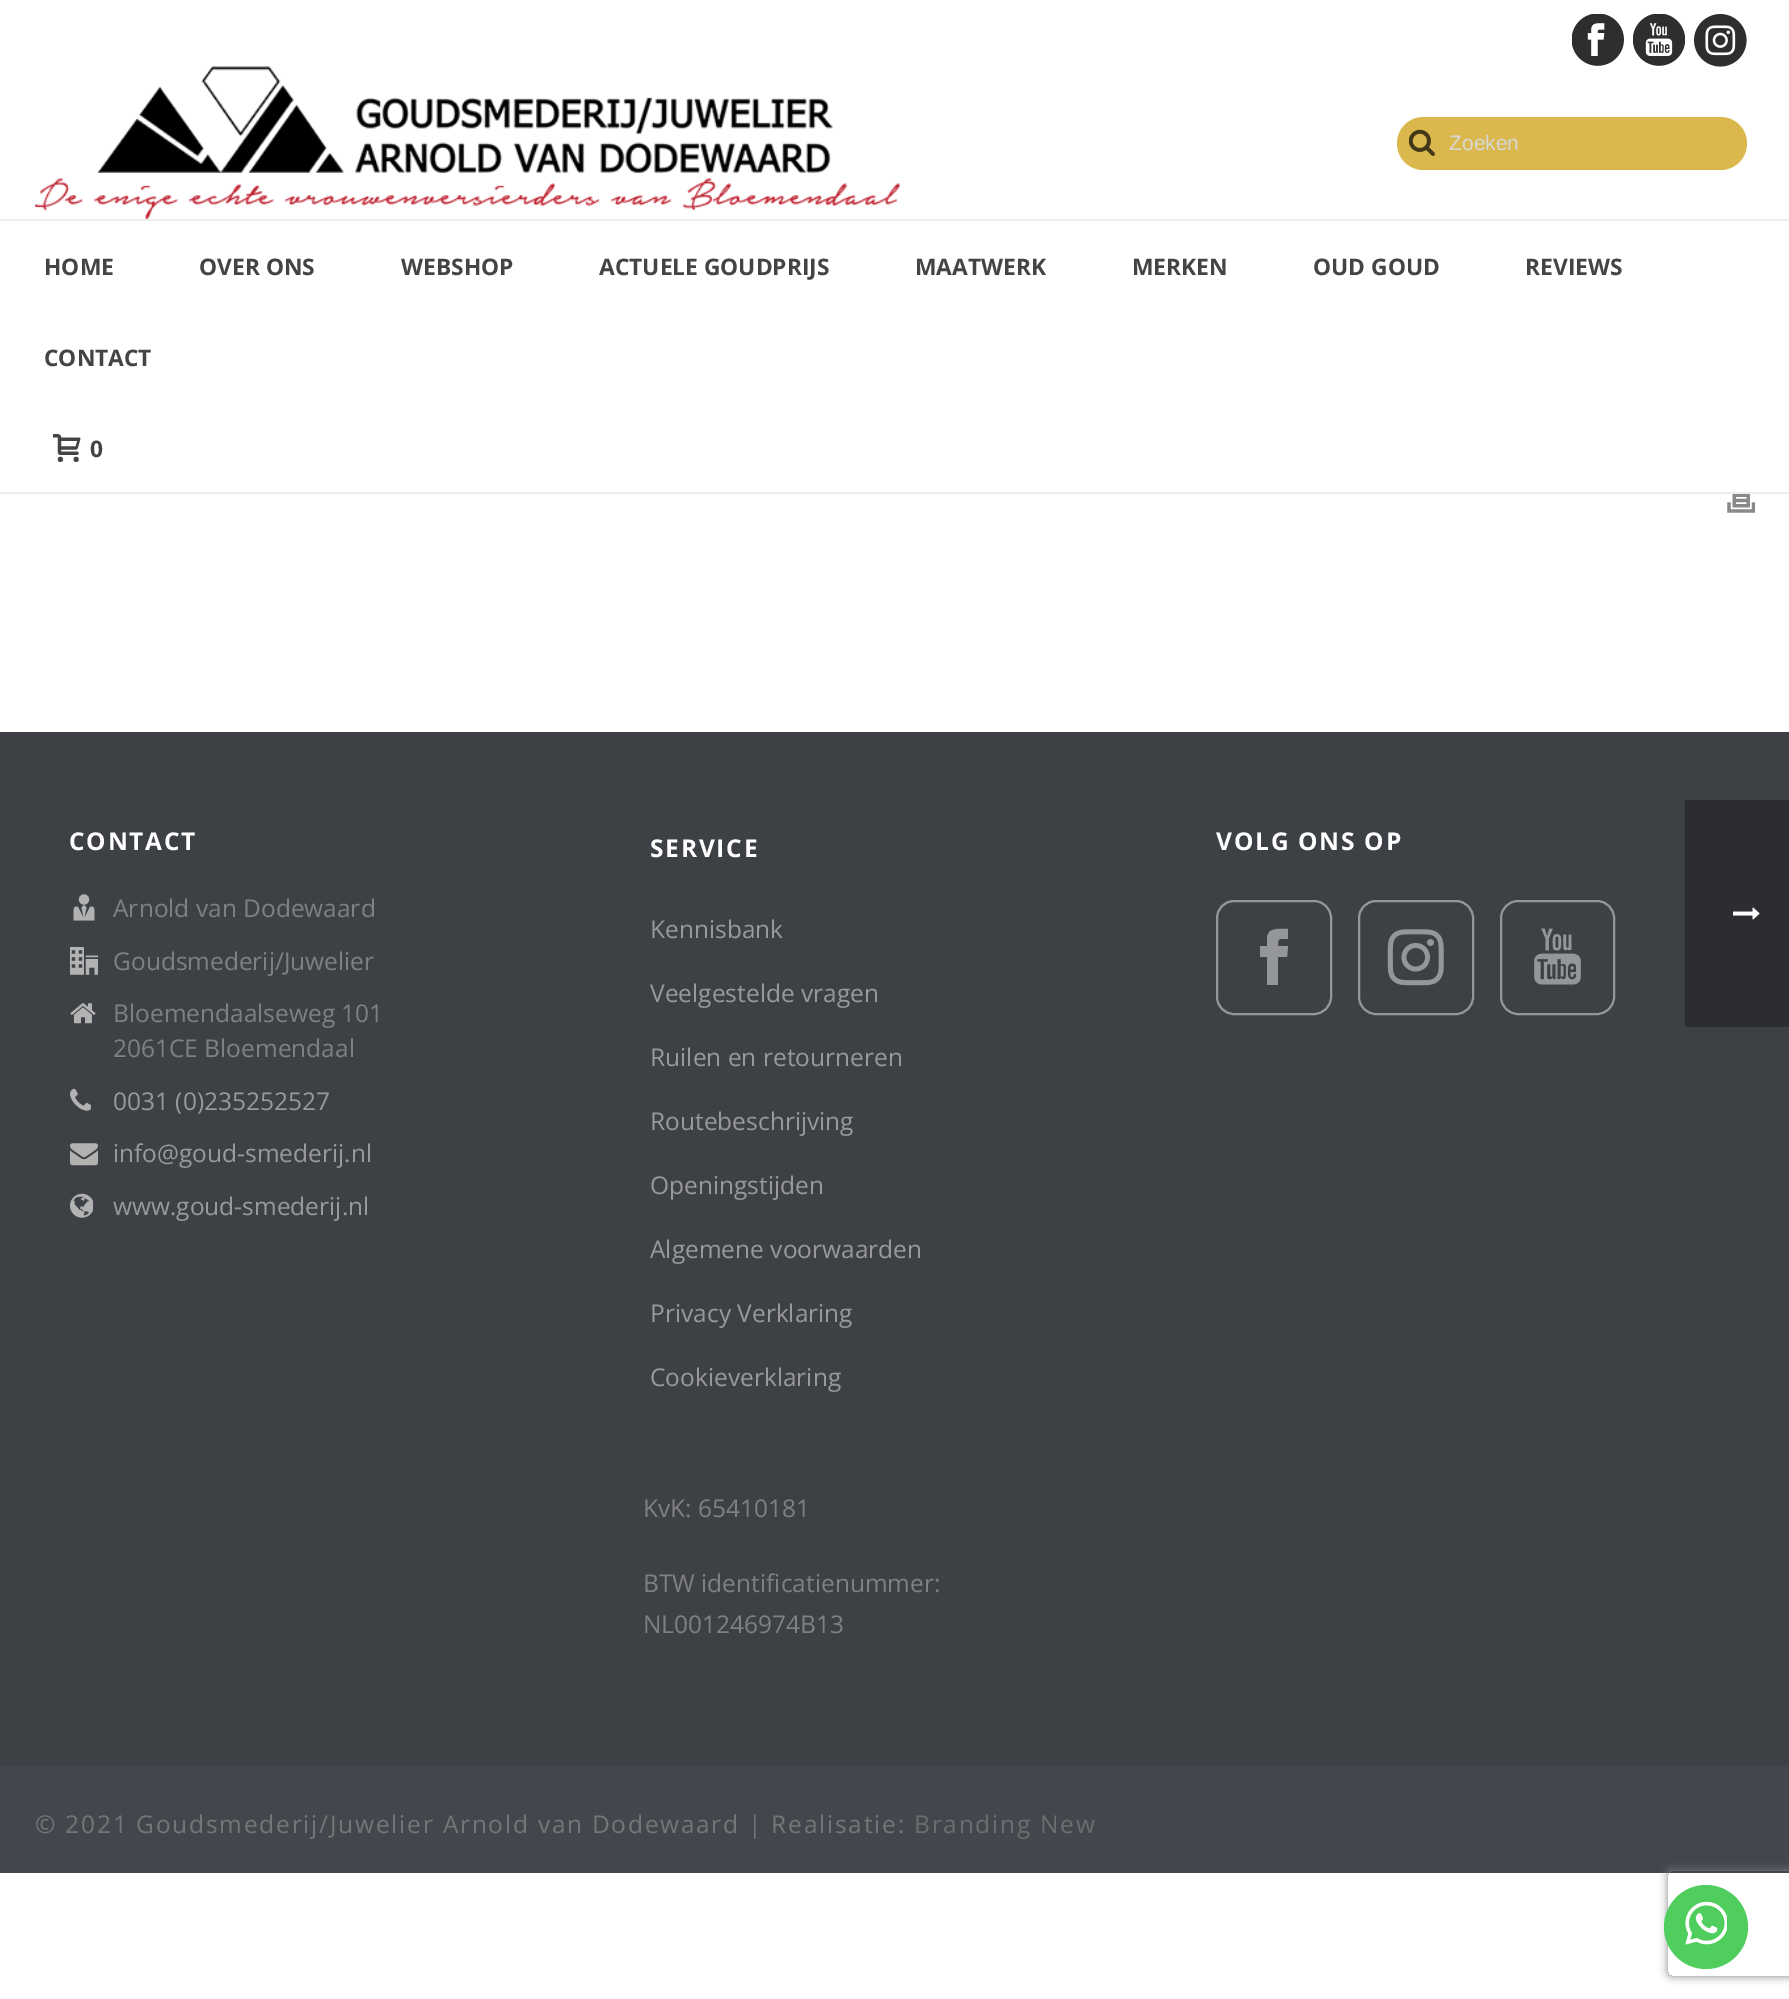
%!PS
<< /PageSize [1789 1999] /PageUsesTransparency true >> setpagedevice
/rgb { dup -16 bitshift 255 div exch dup -8 bitshift 255 and 255 div exch 255 and 255 div setrgbcolor } def
/font { [ exch dup neg 0 0 3 -1 roll 0 0 ] selectfont } def
/text { moveto show } def
/alpha { dup .setfillconstantalpha .setstrokeconstantalpha } def
/circle { newpath 0 360 arc closepath } def
/roundrect { 5 dict begin { /r /h /w /y /x } { exch def } forall
  x r add y moveto x w add y 2 copy h add r arct x w add y h add x 1 index r arct
  x y h add x y r arct x y 2 copy exch w add exch r arct closepath end } def
/shadow { 12 dict begin { /a /b /q /h /w /y /x } { exch def } forall gsave /was 0 def
  9 -2 -9 { dup b mul 4 div /e exch def 1 sub .425 mul 2.718 exch exp 1 add a .99 .min exch div /now exch def
    1 1 now sub 1 was sub div sub alpha /was now def
    w h .min e 2 mul add 0 gt { x e sub y e sub w e 2 mul add h e 2 mul add
      q e add b .6 mul add w h .min 2 div e add .min 0 .max roundrect fill } if } for grestore end } def
/picture { 5 dict begin { /h /w /y /x /name } { exch def } forall
  gsave x y translate w h scale
  w h 8 [w 0 0 h 0 0] name (r) file false 3 colorimage grestore end } def
0 .pushpdf14devicefilter
0 1999 translate 1 -1 scale
4 setmiterlimit
/s1 { /LiberationSans-Regular 21 font 16#D8D8D8 rgb } def
/s2 { /OpenSans-Bold 22.75 font 16#444444 rgb } def
/s3 { /OpenSans-Regular 24.5 font 16#808080 rgb } def
/s4 { /OpenSans-Regular 24.5 font 16#999999 rgb } def
16#FFFFFF rgb
0 0 1789 1999 rectfill
(pic1.raw) 1572 14 52 52 picture
(pic2.raw) 1633 14 52 52 picture
(pic3.raw) 1694 14 53 53 picture
16#EDEDED rgb
0 492 1789 2 rectfill
(pic4.raw) 35 66 865 153 picture
16#DBB84D rgb
1397 117 350 53 26.5 roundrect fill
(pic5.raw) 1409 129 26 27 picture
s1
(Zoeken) 1449 150 text
16#EDEDED rgb
0 219 1789 2 rectfill
s2
(HOME) 44 275 text
(OVER ONS) 199 275 text
(WEBSHOP) 401 275 text
(ACTUELE GOUDPRIJS) 599 275 text
(MAATWERK) 915 275 text
(MERKEN) 1132 275 text
(OUD GOUD) 1313 275 text
(REVIEWS) 1525 275 text
(CONTACT) 44 366 text
(pic6.raw) 53 434 28 28 picture
(0) 90 457 text
(pic7.raw) 1727 494 28 19 picture
16#3D4045 rgb
0 732 1789 1034 rectfill
/OpenSans-Bold 24.5 font
16#FFFFFF rgb
69 850 moveto 1.75 0 (CONTACT) ashow
(pic8.raw) 73 894 22 27 picture
s3
(Arnold van Dodewaard) 113 917 text
(pic9.raw) 70 947 28 28 picture
(Goudsmederij/Juwelier) 113 970 text
(pic10.raw) 70 1003 26 21 picture
(Bloemendaalseweg 101) 113 1022 text
(2061CE Bloemendaal) 113 1057 text
(pic11.raw) 70 1088 21 23 picture
s4
(0031 \(0\)235252527) 113 1110 text
(pic12.raw) 70 1143 28 23 picture
(info@goud-smederij.nl) 113 1162 text
(pic13.raw) 70 1193 23 25 picture
(www.goud-smederij.nl) 113 1215 text
/OpenSans-Bold 24.5 font
16#FFFFFF rgb
650 857 moveto 1.75 0 (SERVICE) ashow
s4
(Kennisbank) 650 938 text
(Veelgestelde vragen) 650 1002 text
(Ruilen en retourneren) 650 1066 text
(Routebeschrijving) 650 1130 text
(Openingstijden) 650 1194 text
(Algemene voorwaarden) 650 1258 text
(Privacy Verklaring) 650 1322 text
(Cookieverklaring) 650 1386 text
s3
(KvK: 65410181) 643 1517 text
(BTW identificatienummer:) 643 1592 text
(NL001246974B13) 643 1633 text
/OpenSans-Bold 24.5 font
16#FFFFFF rgb
1216 850 moveto 1.75 0 (VOLG ONS OP) ashow
16#949698 rgb
2 setlinewidth
1217 901 114 113 17 roundrect stroke
1267 939 moveto 1267 946 lineto 1260 946 lineto 1260 957 lineto 1267 957 lineto 1267 985 lineto 1278 985 lineto 1278 957 lineto 1287 957 lineto 1288 946 lineto 1278 946 lineto 1278 937 1279 939 1288 939 curveto 1288 929 lineto 1279 929 1267 927 1267 939 curveto closepath fill
1359 901 114 113 17 roundrect stroke
(pic14.raw) 1387 929 57 57 picture
1501 901 113 113 17 roundrect stroke
(pic15.raw) 1534 928 47 57 picture
16#43474D rgb
0 1766 1789 107 rectfill
/OpenSans-Regular 24.5 font
16#747576 rgb
35 1833 moveto 1.75 0 (© 2021 Goudsmederij/Juwelier Arnold van Dodewaard | Realisatie:) ashow
16#6D6D6F rgb
914 1833 moveto 1.75 0 (Branding New) ashow
16#2B2D30 rgb
1685 800 104 227 rectfill
(pic16.raw) 1733 907 27 13 picture
gsave
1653 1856 moveto 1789 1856 lineto 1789 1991 lineto 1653 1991 lineto closepath 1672 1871 moveto 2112 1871 lineto 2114 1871 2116 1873 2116 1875 curveto 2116 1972 lineto 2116 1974 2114 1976 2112 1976 curveto 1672 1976 lineto 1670 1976 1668 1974 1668 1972 curveto 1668 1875 lineto 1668 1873 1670 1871 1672 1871 curveto closepath eoclip newpath
16#808080 rgb
1668 1871 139 105 4 4.5 1 shadow
grestore
16#4FCE5D rgb
1706 1927 42 circle fill
(pic17.raw) 1685 1901 42 44 picture
.poppdf14devicefilter showpage
